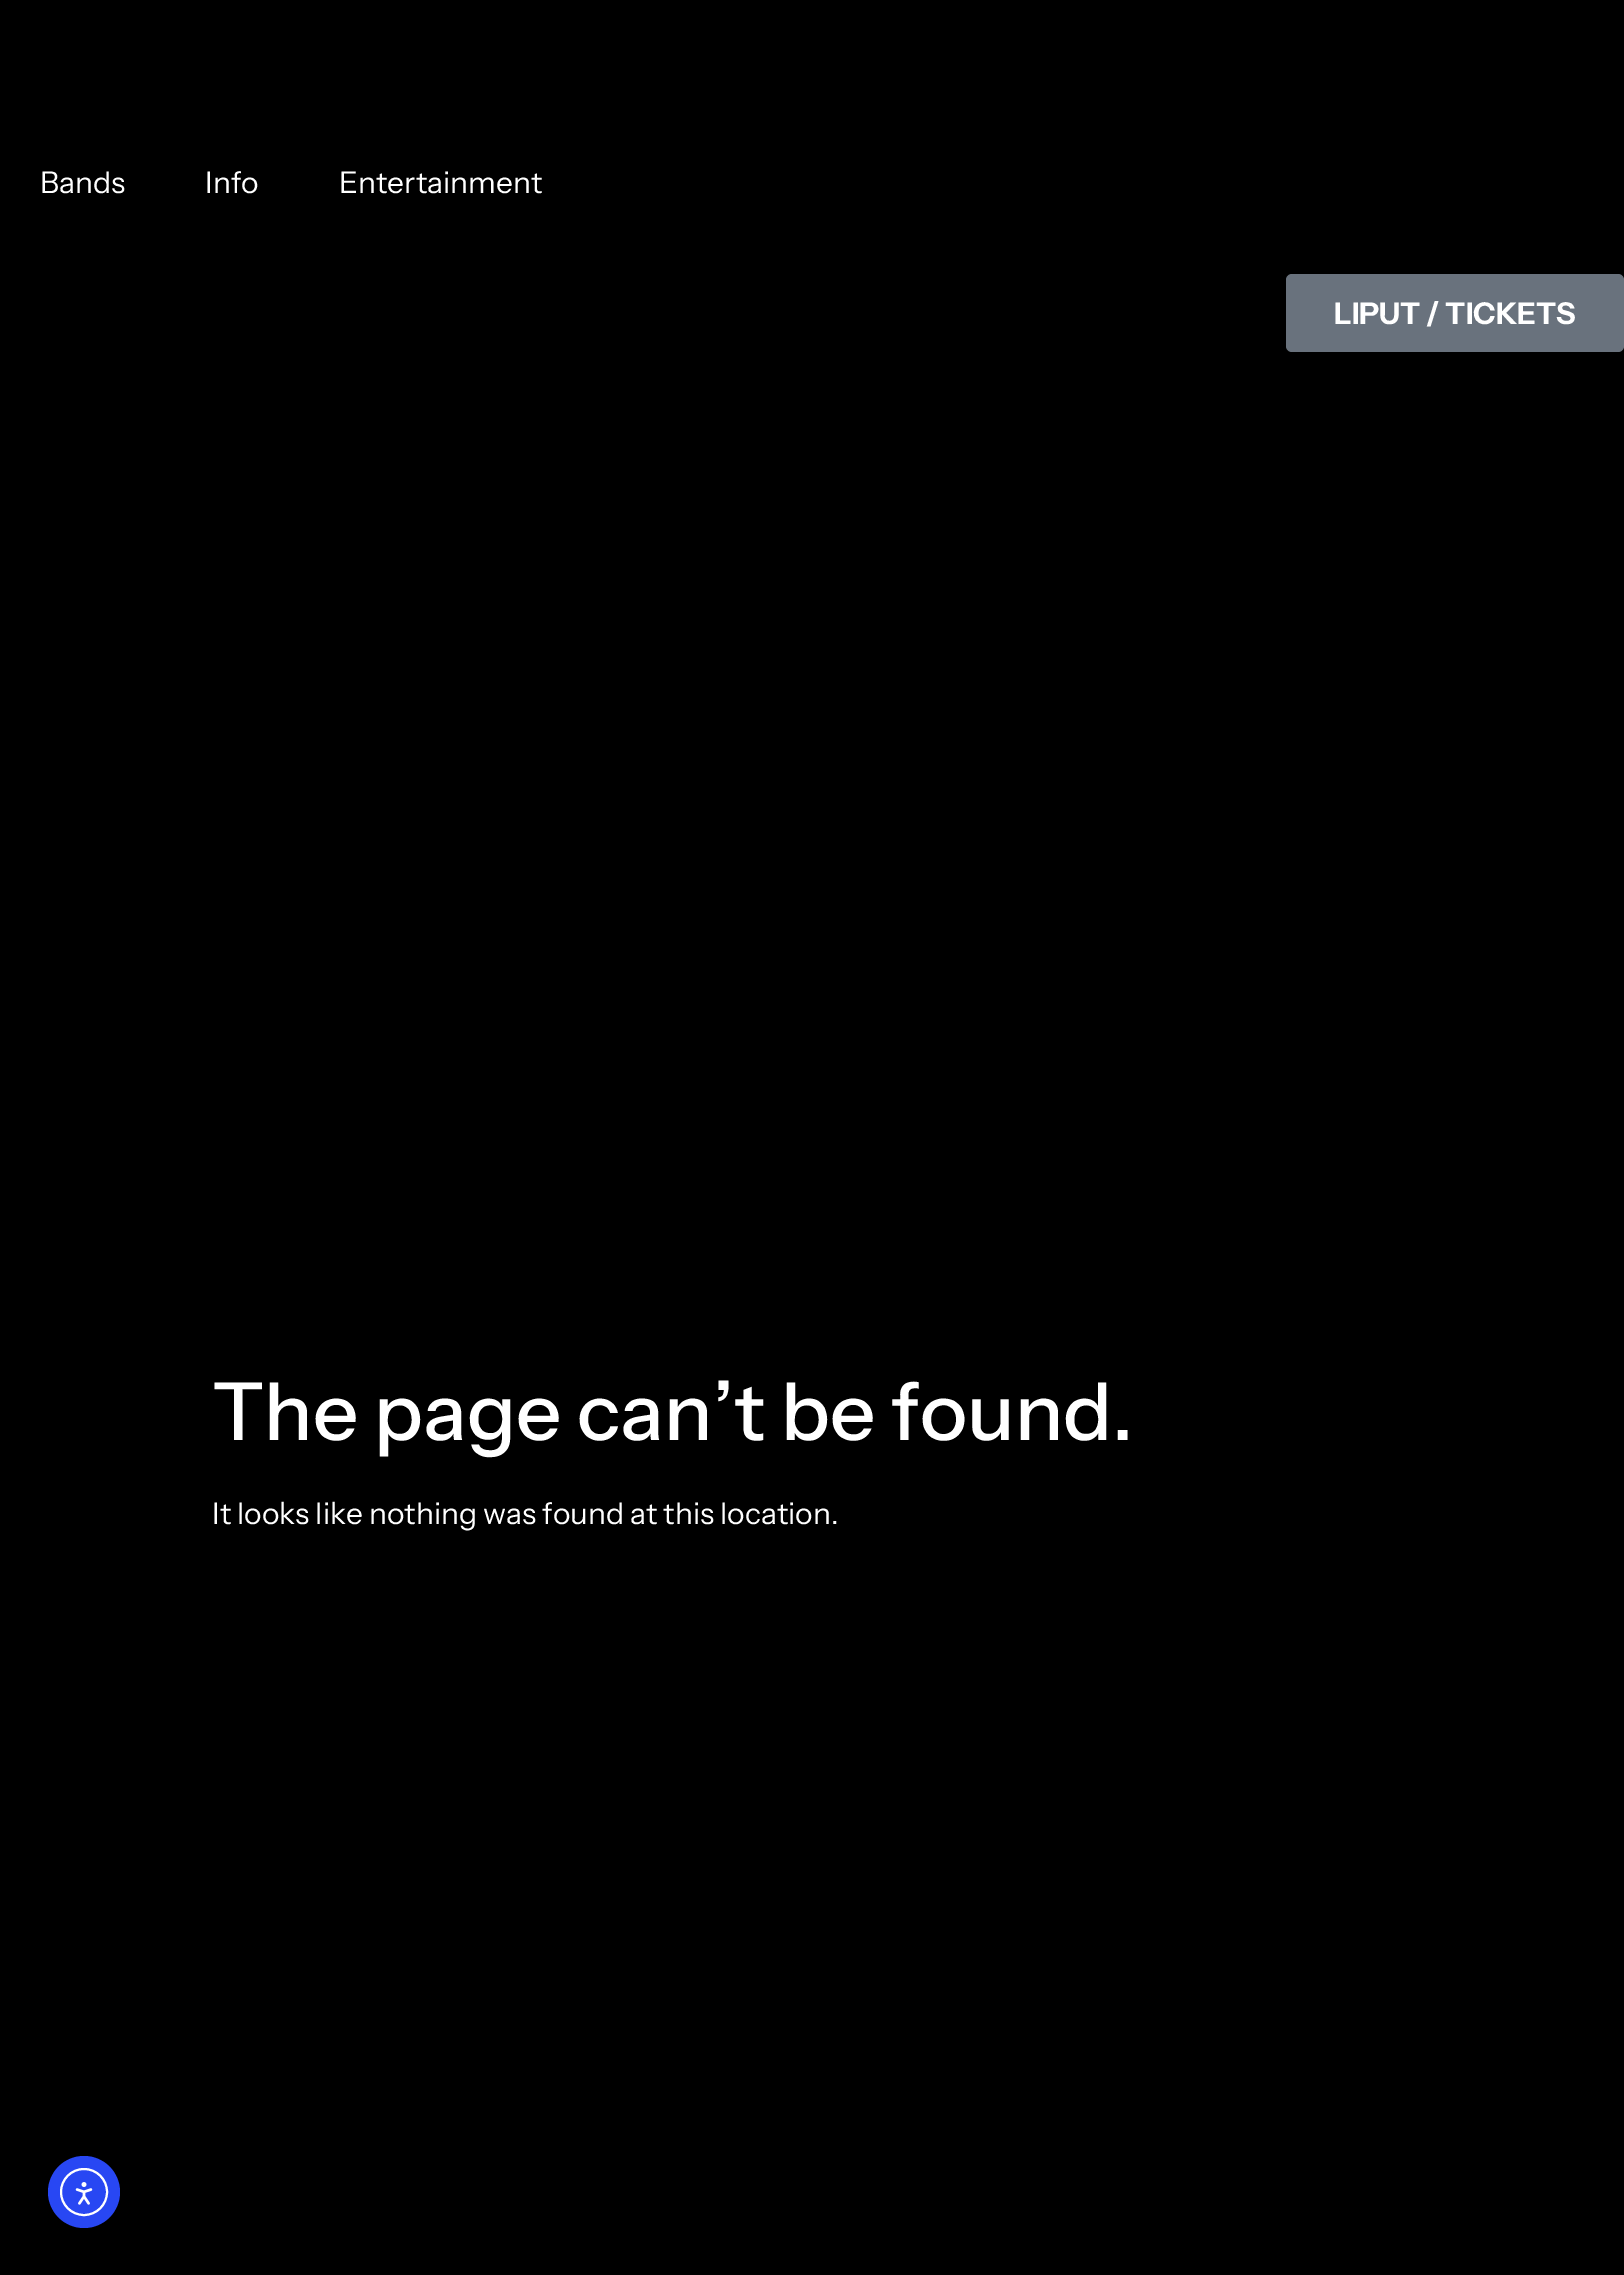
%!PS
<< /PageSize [1624 2275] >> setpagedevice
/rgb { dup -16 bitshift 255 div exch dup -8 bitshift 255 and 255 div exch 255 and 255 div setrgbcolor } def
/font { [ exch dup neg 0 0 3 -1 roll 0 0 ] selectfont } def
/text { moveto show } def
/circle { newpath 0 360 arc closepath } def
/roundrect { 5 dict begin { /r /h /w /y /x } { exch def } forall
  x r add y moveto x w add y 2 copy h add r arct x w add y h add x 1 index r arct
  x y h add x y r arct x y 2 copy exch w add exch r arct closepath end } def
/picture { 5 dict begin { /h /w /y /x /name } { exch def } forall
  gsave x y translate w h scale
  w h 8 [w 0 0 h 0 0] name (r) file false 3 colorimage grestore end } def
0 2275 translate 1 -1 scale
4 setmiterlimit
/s1 { /InstrumentSans-Regular 30 font 16#FFFFFF rgb } def
/s2 { /InstrumentSans-Bold 30 font 16#FFFFFF rgb } def
/s3 { /InstrumentSans-Medium 80 font 16#FFFFFF rgb } def
16#000000 rgb
0 0 1624 2275 rectfill
s1
(Bands) 40 193 text
(Info) 205 193 text
(Entertainment) 339 193 text
16#69727D rgb
1286 274 338 78 6 roundrect fill
s2
(LIPUT / TICKETS) 1334 324 text
s3
(The page can’t be found.) 212 1440 text
s1
(It looks like nothing was found at this location.) 212 1524 text
16#2847F3 rgb
84 2192 36 circle fill
16#FFFFFF rgb
2 setlinewidth
84 2192 23 circle stroke
(pic1.raw) 75 2182 18 23 picture
showpage
